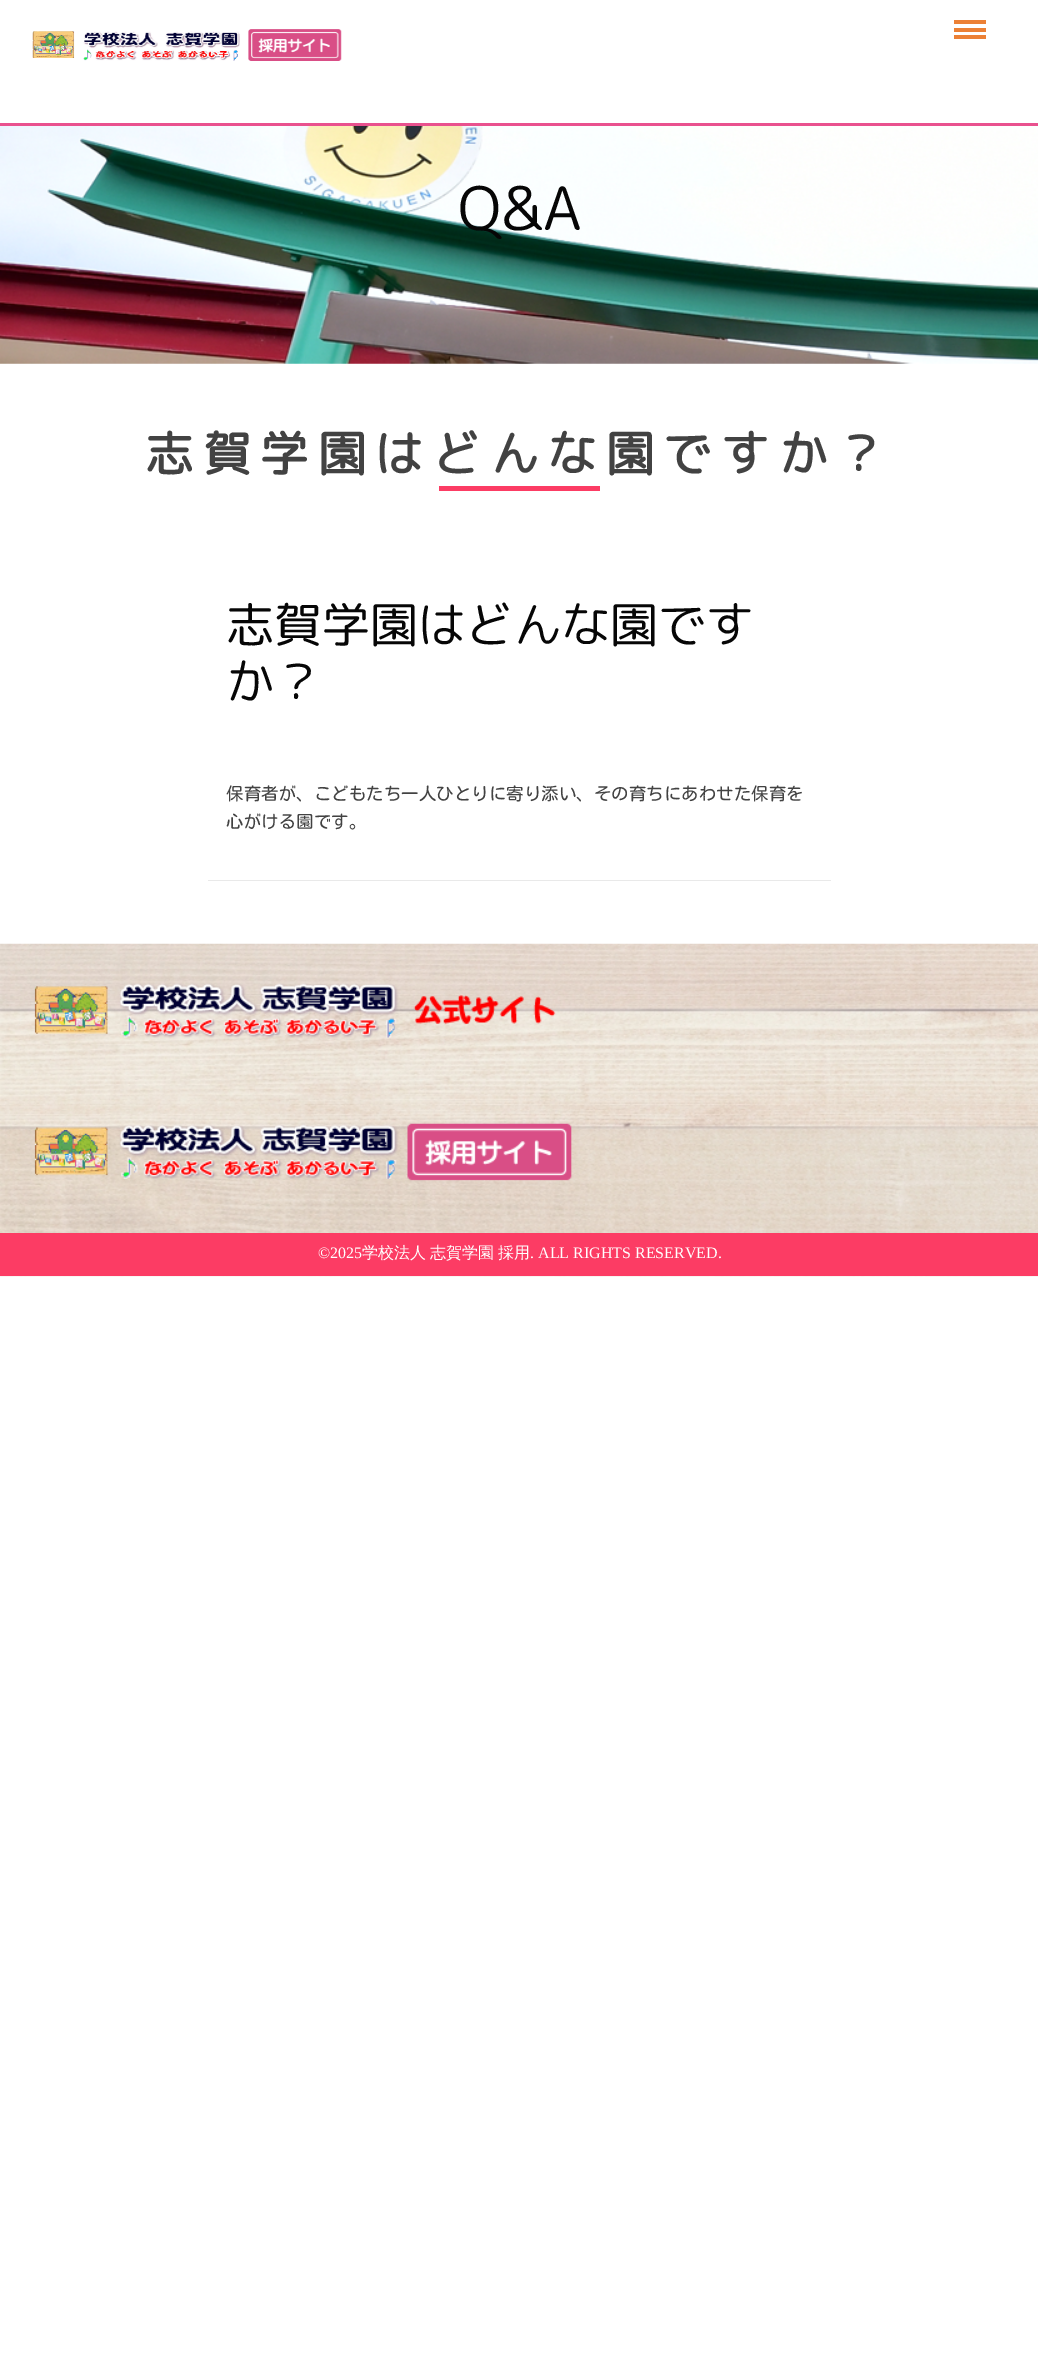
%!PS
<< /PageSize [1038 2377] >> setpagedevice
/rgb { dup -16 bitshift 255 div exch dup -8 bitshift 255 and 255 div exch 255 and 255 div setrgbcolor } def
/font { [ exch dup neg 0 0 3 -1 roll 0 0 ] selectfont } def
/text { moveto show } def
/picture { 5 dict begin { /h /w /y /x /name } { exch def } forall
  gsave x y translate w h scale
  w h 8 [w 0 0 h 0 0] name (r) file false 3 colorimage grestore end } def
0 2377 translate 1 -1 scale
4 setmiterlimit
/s1 { /RoundedMplus1c-Regular 60 font 16#060606 rgb } def
/s2 { /RoundedMplus1c-Regular 48 font 16#060606 rgb } def
/s3 { /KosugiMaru-Regular 17.5 font 16#424242 rgb } def
/s4 { /LiberationSerif-Regular 16 font 16#FFFFFF rgb } def
16#FFFFFF rgb
0 0 1038 2377 rectfill
16#E9518E rgb
0 123 1038 3 rectfill
(pic1.raw) 32 29 310 32 picture
16#EC8035 rgb
954 20 32 4 rectfill
954 28 32 4 rectfill
954 35 32 4 rectfill
(pic2.raw) 0 126 1038 238 picture
s1
(Q&A) 458 230 text
/RoundedMplus1c-Bold 48 font
16#424242 rgb
145 471 moveto 9.6 0 (志賀学園はどんな園ですか？) ashow
16#FC3C64 rgb
439 486 161 5 rectfill
16#E9E9E9 rgb
208 880 623 1 rectfill
s2
(志賀学園はどんな園です) 226 642 text
(か？) 226 699 text
s3
(保育者が、こどもたち一人ひとりに寄り添い、その育ちにあわせた保育を) 226 800 text
(心がける園です。) 226 828 text
(pic3.raw) 0 943 1038 334 picture
(pic4.raw) 34 983 522 56 picture
(pic5.raw) 34 1123 538 58 picture
16#FC3C64 rgb
0 1233 1038 43 rectfill
s4
(©2025) 318 1258 text
/WenQuanYiZenHei-Medium 16 font
362 1258 moveto -1 0 32 (学校法人 志賀学園 採用) widthshow
s4
(. ALL RIGHTS RESERVED.) 530 1258 text
showpage
